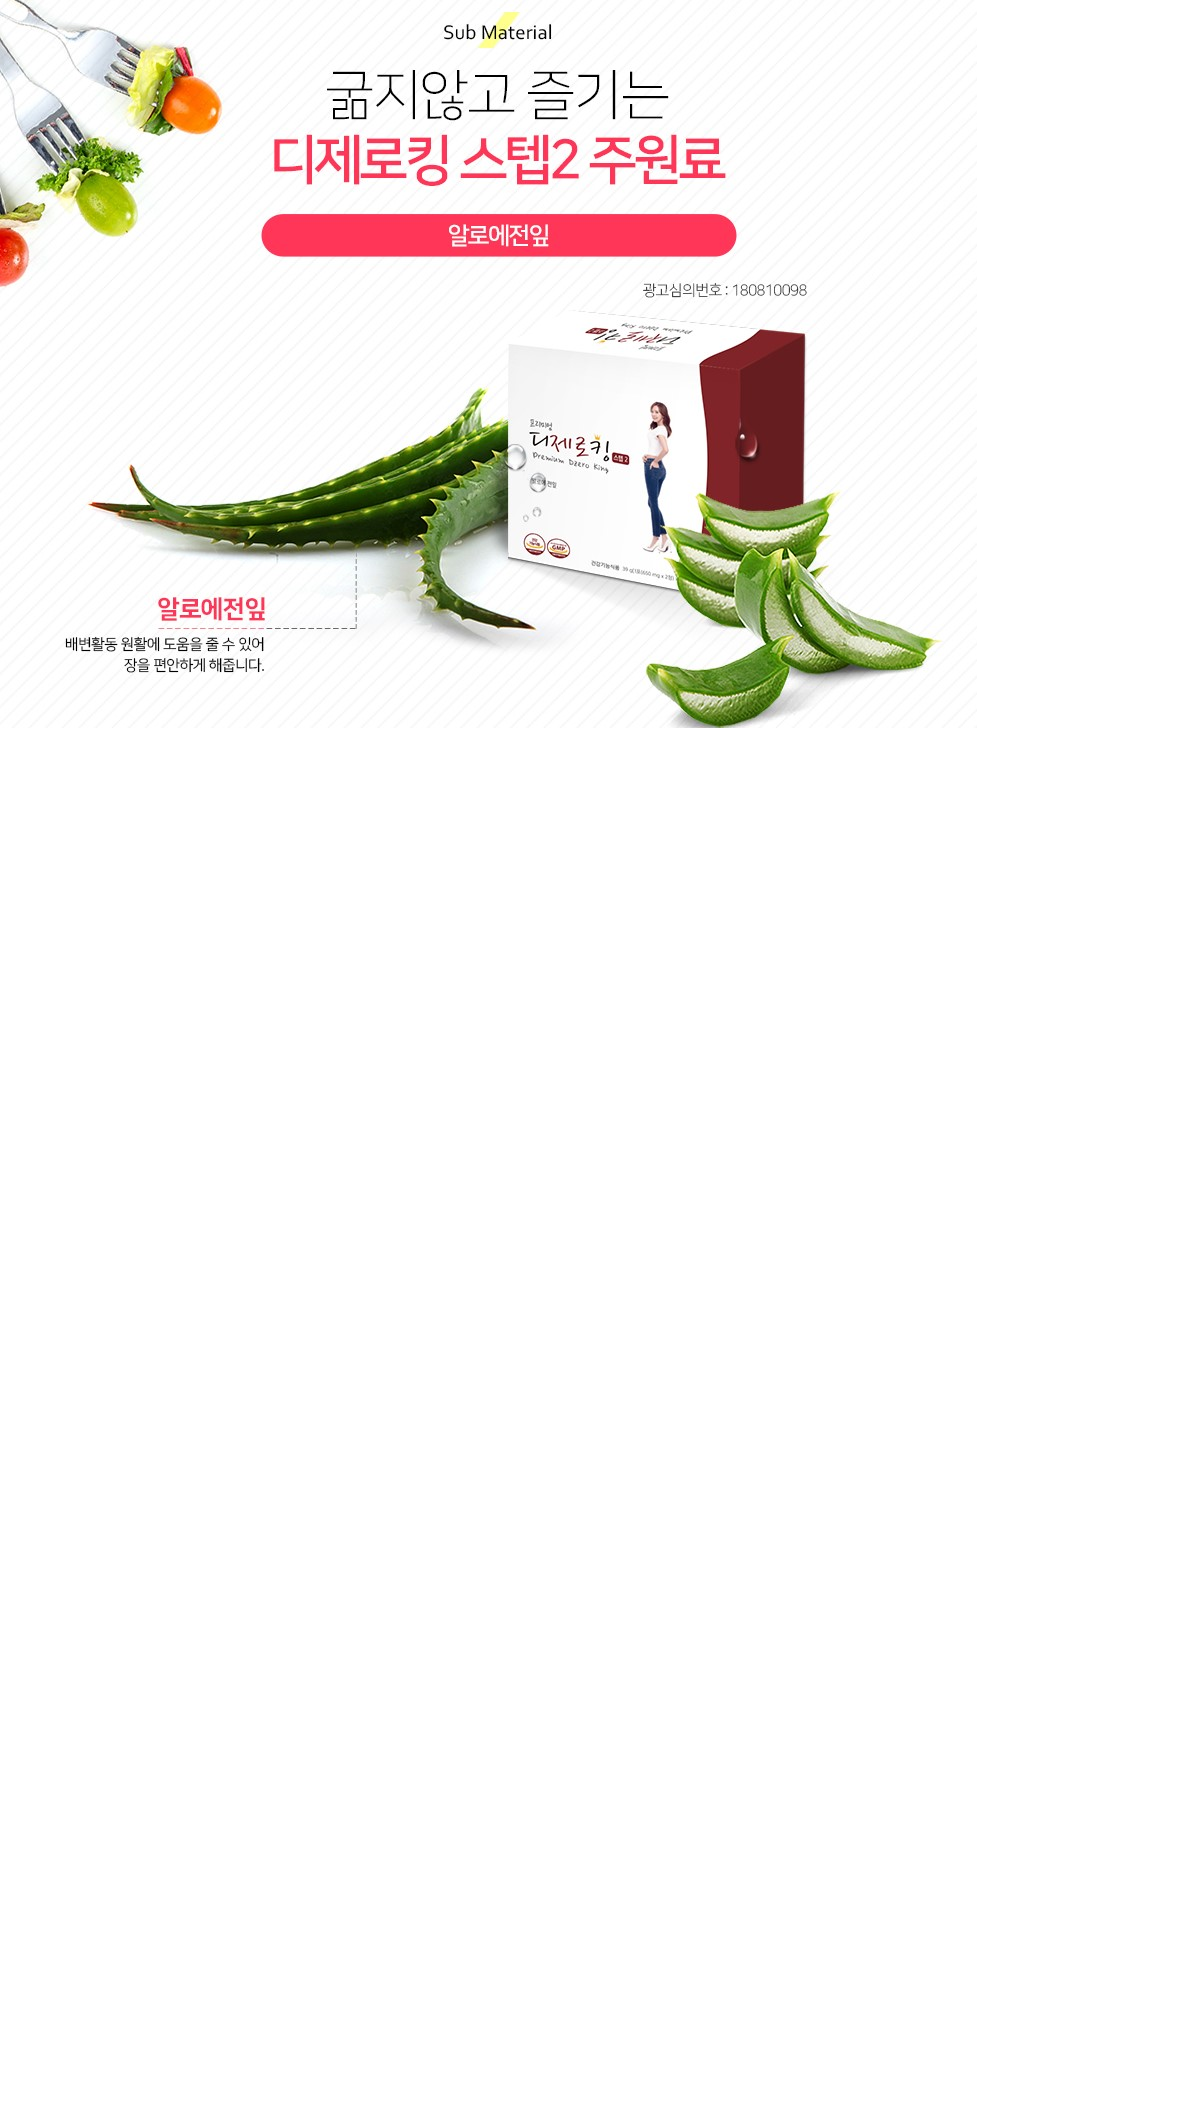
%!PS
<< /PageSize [1179 2125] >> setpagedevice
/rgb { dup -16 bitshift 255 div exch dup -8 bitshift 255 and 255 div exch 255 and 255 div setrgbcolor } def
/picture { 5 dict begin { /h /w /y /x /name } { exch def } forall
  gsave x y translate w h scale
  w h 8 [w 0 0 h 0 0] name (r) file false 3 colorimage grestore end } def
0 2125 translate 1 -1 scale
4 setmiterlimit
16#FFFFFF rgb
0 0 1179 2125 rectfill
(pic1.raw) 0 0 977 728 picture
showpage
